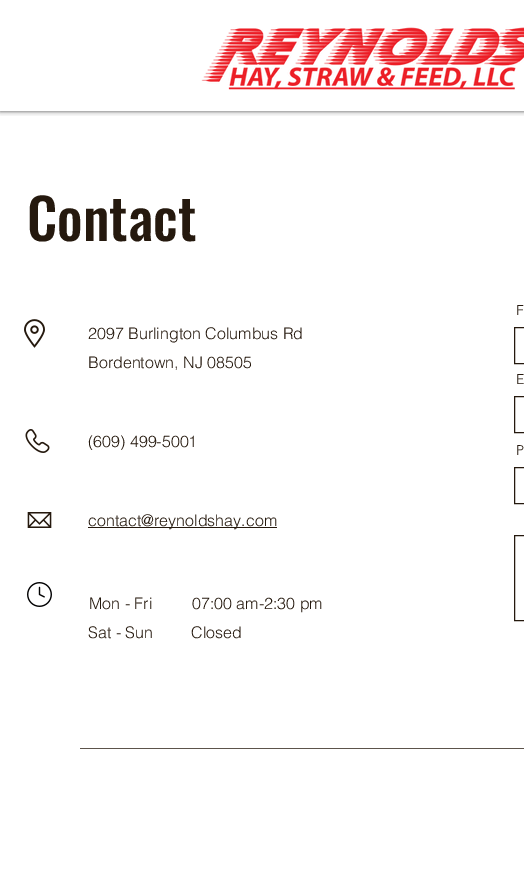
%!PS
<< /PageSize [524 873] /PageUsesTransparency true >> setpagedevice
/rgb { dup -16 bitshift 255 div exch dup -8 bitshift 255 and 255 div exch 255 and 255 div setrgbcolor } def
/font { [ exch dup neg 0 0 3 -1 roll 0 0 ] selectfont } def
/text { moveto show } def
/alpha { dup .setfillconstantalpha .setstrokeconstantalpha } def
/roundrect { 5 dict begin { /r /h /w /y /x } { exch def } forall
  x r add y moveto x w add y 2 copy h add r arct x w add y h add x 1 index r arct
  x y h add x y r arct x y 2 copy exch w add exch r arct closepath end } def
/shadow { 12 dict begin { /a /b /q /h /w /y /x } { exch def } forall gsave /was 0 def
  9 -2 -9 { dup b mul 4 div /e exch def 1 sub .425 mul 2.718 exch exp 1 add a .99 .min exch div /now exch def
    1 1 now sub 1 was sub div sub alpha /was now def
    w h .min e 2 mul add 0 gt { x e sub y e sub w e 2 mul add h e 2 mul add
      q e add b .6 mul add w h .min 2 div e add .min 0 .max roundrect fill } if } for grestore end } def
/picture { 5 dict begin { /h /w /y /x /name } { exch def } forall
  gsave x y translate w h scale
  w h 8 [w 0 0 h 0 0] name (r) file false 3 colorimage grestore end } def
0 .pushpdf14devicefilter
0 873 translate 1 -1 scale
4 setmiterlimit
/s1 { /Oswald-Medium 56 font 16#25190E rgb } def
/s2 { /helvetica-Light 16 font 16#25190E rgb } def
/s3 { /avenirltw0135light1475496-Light 14 font 16#25190E rgb } def
16#FFFFFF rgb
0 0 524 873 rectfill
gsave
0 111 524 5 rectclip
16#000000 rgb
0 0 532 111 0 2.5 0.7 shadow
grestore
(pic1.raw) 201 27 323 63 picture
s1
(Contact) 27 241 text
(pic2.raw) 24 319 21 29 picture
s2
(2097 Burlington Columbus Rd) 88 339 text
(Bordentown, NJ 08505) 88 368 text
(pic3.raw) 25 429 25 24 picture
(\(609\) 499-5001) 88 447 text
(pic4.raw) 27 512 25 16 picture
88 527 189 1 rectfill
(contact@reynoldshay.com) 88 526 text
(pic5.raw) 27 582 25 25 picture
(Mon - Fri) 89 609 text
(07:00 am-2:30 pm) 192 609 text
(Sat - Sun) 88 638 text
(Closed) 191 638 text
s3
(F) 516 315 text
514.5 327.5 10 36 rectstroke
(E) 516 384 text
514.5 396.5 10 36 rectstroke
(P) 516 455 text
514.5 467.5 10 36 rectstroke
514.5 535.5 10 85 rectstroke
16#5C534B rgb
80 748 444 1 rectfill
.poppdf14devicefilter showpage
